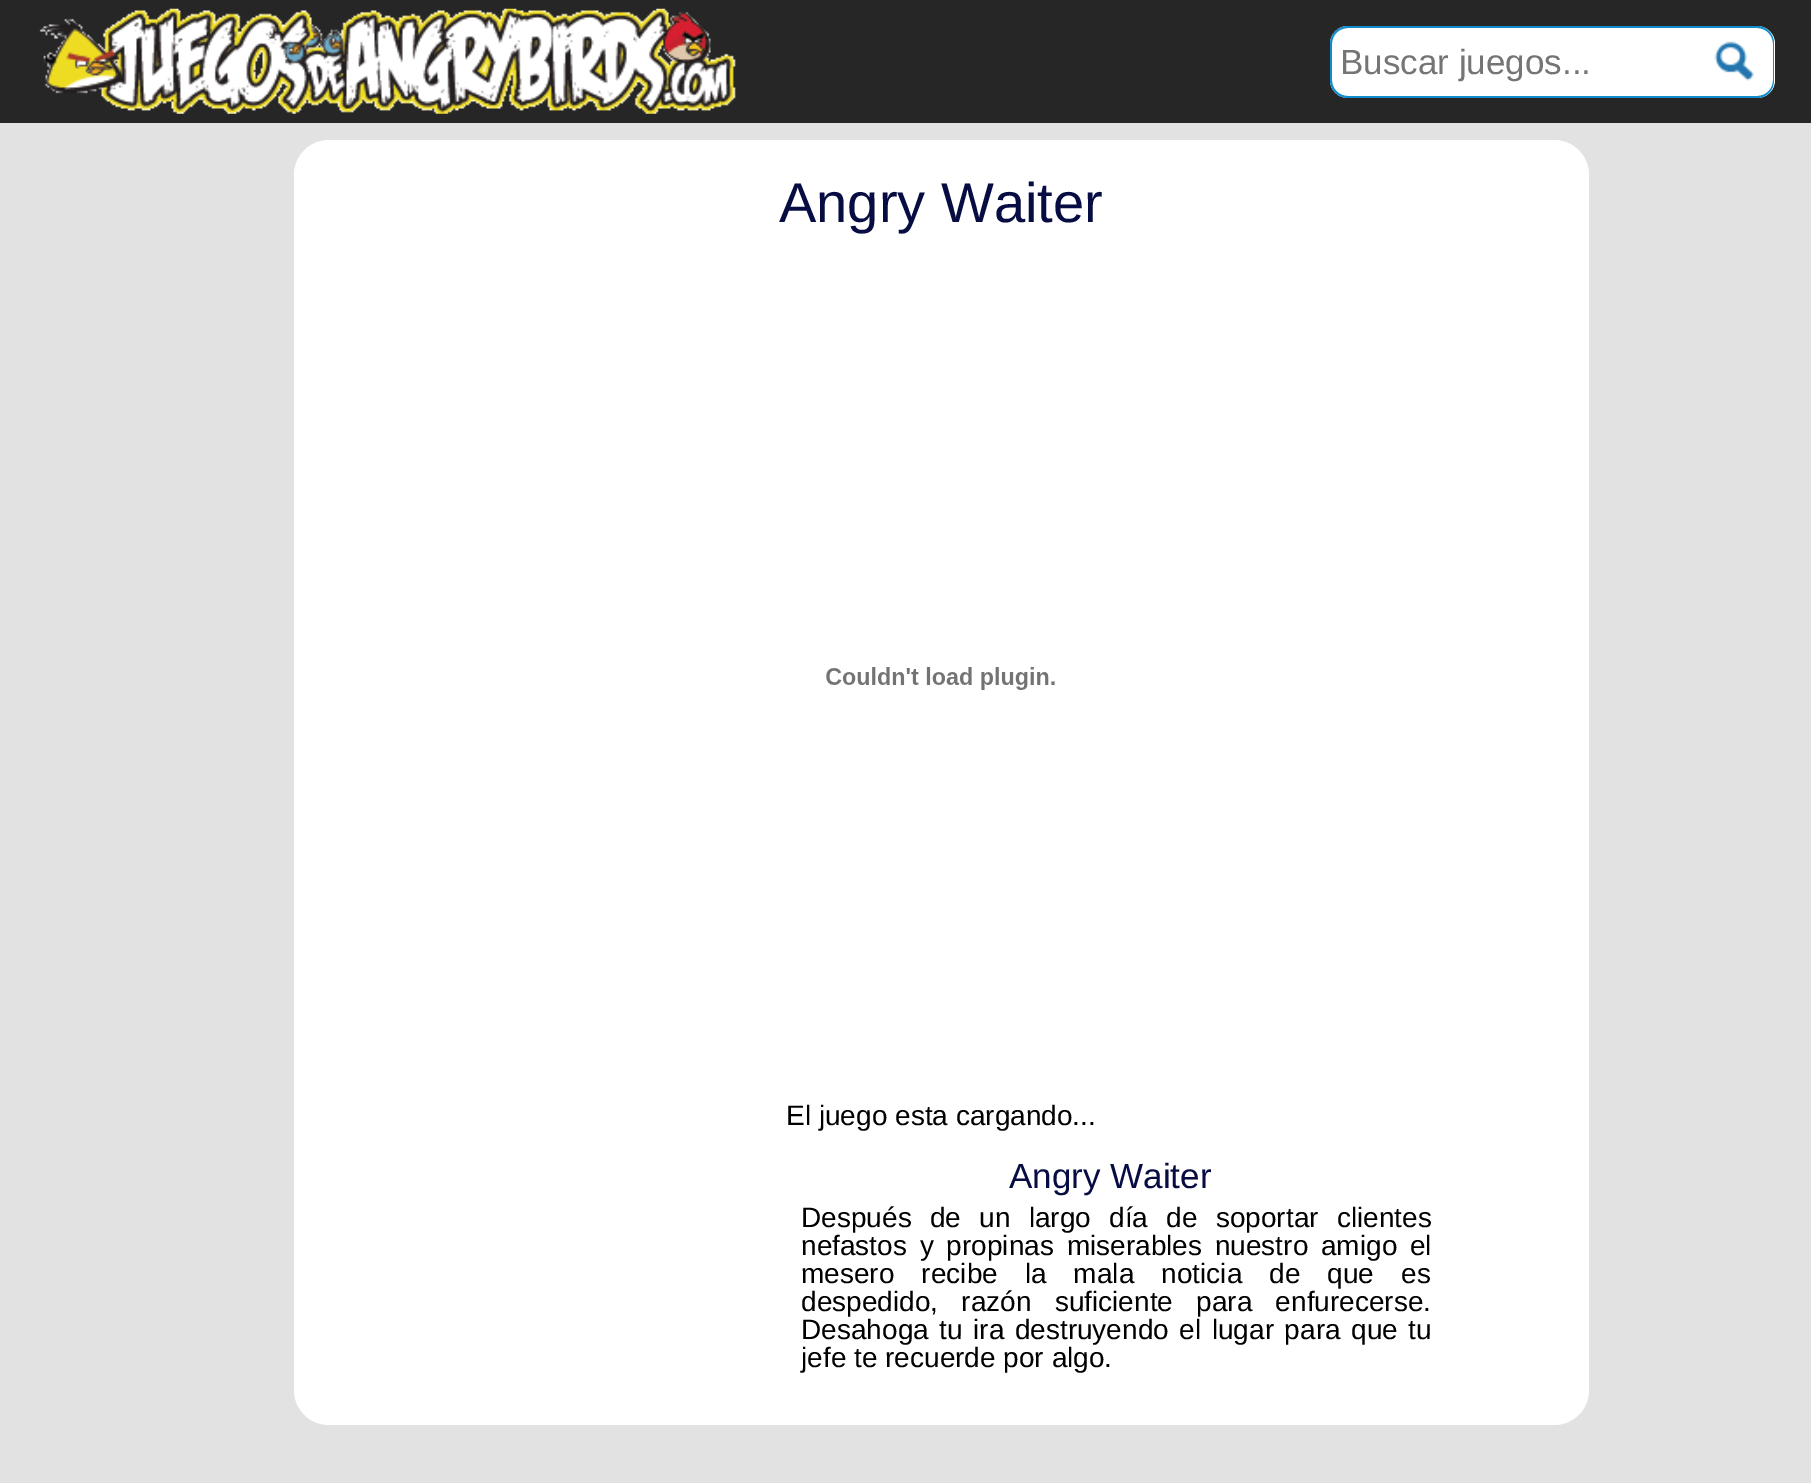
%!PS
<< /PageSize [1811 1483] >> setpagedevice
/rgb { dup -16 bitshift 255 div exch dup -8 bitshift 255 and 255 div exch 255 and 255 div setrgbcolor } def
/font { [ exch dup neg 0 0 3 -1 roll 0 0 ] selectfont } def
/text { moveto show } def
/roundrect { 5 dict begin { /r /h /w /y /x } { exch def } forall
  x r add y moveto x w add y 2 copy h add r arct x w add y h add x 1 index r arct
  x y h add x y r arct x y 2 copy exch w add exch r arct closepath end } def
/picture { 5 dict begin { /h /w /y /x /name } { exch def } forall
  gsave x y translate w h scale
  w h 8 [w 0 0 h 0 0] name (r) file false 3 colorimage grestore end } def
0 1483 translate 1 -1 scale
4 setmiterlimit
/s1 { /LiberationSans-Regular 35 font 16#757575 rgb } def
/s2 { /LiberationSans-Regular 56 font 16#070D42 rgb } def
/s3 { /LiberationSans-Regular 28 font 16#000000 rgb } def
/s4 { /LiberationSans-Regular 35 font 16#070D42 rgb } def
16#E2E2E2 rgb
0 0 1811 1483 rectfill
16#262626 rgb
0 0 1811 123 rectfill
(pic1.raw) 39 8 697 106 picture
16#FFFFFF rgb
1348 26 moveto 1699 26 lineto 1699 98 lineto 1348 98 lineto 1338 98 1330 90 1330 80 curveto 1330 44 lineto 1330 34 1338 26 1348 26 curveto closepath fill
16#118DCD rgb
1348 26 moveto 1699 26 lineto 1699 98 lineto 1348 98 lineto 1338 98 1330 90 1330 80 curveto 1330 44 lineto 1330 34 1338 26 1348 26 curveto closepath 1348 28 moveto 1699 28 lineto 1699 96 lineto 1348 96 lineto 1339 96 1332 89 1332 80 curveto 1332 44 lineto 1332 35 1339 28 1348 28 curveto closepath eofill
s1
(Buscar juegos...) 1340 74 text
16#FFFFFF rgb
1696 26 moveto 1757 26 lineto 1767 26 1775 34 1775 44 curveto 1775 80 lineto 1775 90 1767 98 1757 98 curveto 1696 98 lineto closepath fill
16#118DCD rgb
1696 26 moveto 1757 26 lineto 1767 26 1774 34 1774 44 curveto 1774 80 lineto 1774 90 1767 98 1757 98 curveto 1696 98 lineto closepath 1696 28 moveto 1757 28 lineto 1766 28 1773 35 1773 44 curveto 1773 80 lineto 1773 89 1766 96 1757 96 curveto 1696 96 lineto closepath eofill
(pic2.raw) 1714 41 40 40 picture
16#FFFFFF rgb
294 140 1295 1285 35 roundrect fill
s2
(Angry Waiter) 779 222 text
(pic3.raw) 826 667 229 23 picture
s3
(El juego esta cargando...) 786 1125 text
s4
(Angry Waiter) 1009 1188 text
/LiberationSans-Regular 28 font
16#000000 rgb
801 1227 moveto 10.5 0 32 (Después de un largo día de soportar clientes) widthshow
801 1255 moveto 5 0 32 (nefastos y propinas miserables nuestro amigo el) widthshow
801 1283 moveto 19.25 0 32 (mesero recibe la mala noticia de que es) widthshow
801 1311 moveto 15.5 0 32 (despedido, razón suficiente para enfurecerse.) widthshow
801 1339 moveto 2.75 0 32 (Desahoga tu ira destruyendo el lugar para que tu) widthshow
(jefe te recuerde por algo.) 801 1367 text
showpage
